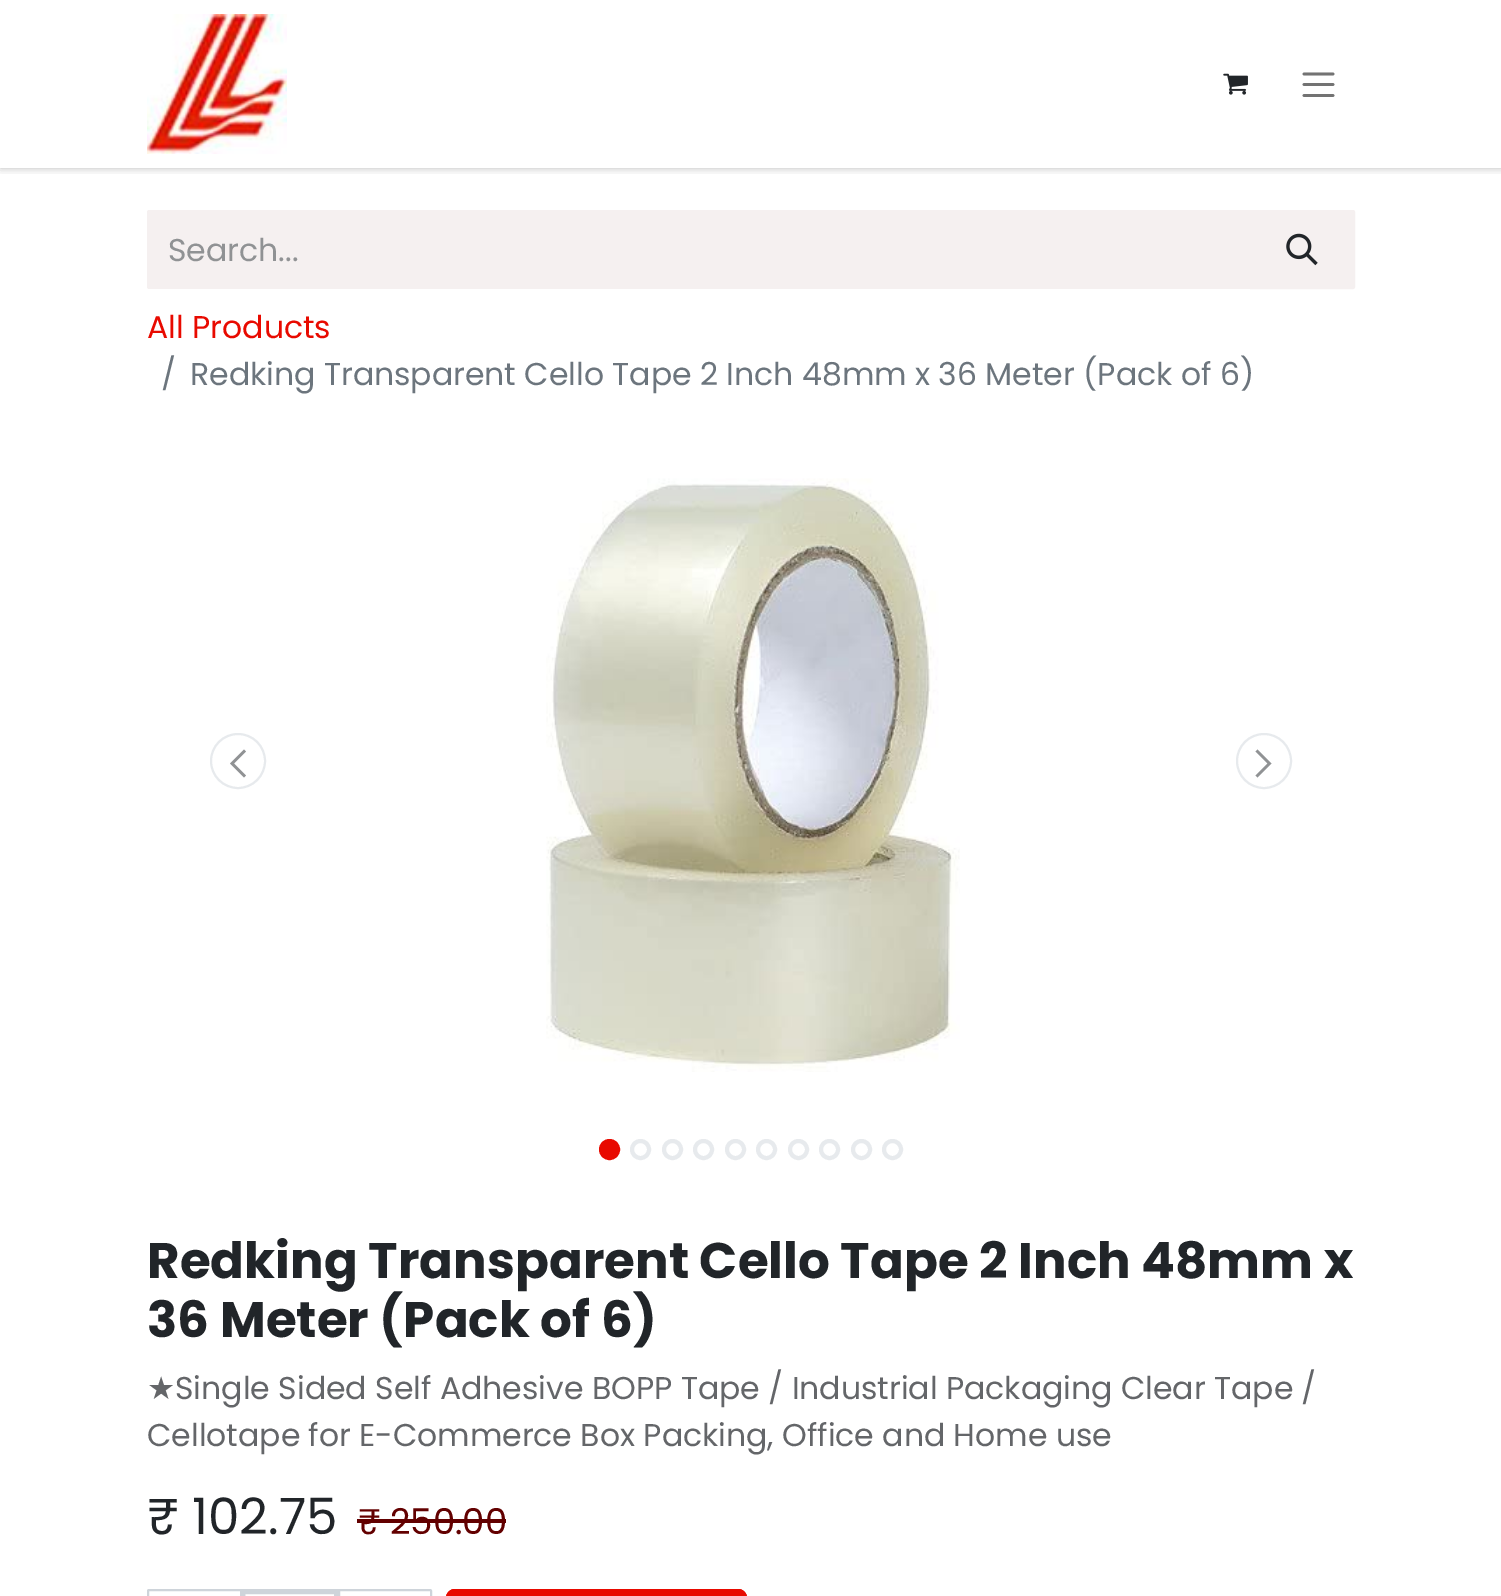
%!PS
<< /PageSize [1501 1596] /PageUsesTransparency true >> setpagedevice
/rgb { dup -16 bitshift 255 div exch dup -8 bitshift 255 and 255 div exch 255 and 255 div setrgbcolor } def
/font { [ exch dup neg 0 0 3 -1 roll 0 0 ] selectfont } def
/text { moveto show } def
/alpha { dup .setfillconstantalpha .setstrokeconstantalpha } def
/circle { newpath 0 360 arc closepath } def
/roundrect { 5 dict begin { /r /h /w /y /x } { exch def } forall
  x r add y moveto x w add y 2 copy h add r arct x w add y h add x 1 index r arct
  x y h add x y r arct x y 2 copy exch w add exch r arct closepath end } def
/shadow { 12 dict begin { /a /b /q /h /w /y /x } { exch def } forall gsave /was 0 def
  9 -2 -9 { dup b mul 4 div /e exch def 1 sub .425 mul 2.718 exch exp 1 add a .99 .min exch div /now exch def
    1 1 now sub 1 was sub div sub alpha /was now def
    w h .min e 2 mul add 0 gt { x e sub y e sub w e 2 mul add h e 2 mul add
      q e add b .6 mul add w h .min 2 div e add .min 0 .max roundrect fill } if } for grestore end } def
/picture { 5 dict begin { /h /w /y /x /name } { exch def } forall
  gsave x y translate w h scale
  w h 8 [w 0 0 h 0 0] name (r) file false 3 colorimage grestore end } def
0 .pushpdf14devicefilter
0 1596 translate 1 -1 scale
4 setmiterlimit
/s1 { /Poppins-Regular 31.5 font 16#909294 rgb } def
/s2 { /Poppins-Regular 31.5 font 16#E80A00 rgb } def
/s3 { /Poppins-Regular 31.5 font 16#6C757D rgb } def
/s4 { /Poppins-Bold 50 font 16#212529 rgb } def
/s5 { /DejaVuSans-Regular 31.5 font 16#646669 rgb } def
/s6 { /Poppins-Regular 31.5 font 16#646669 rgb } def
/s7 { /Poppins-Regular 50 font 16#212529 rgb } def
/s8 { /Poppins-Regular 35.5 font 16#630000 rgb } def
16#FFFFFF rgb
0 0 1501 1596 rectfill
gsave
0 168 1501 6 rectclip
16#000000 rgb
0 0 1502 168 0 4.5 0.25 shadow
grestore
(pic1.raw) 147 14 140 140 picture
(pic2.raw) 1223 73 25 22 picture
16#737373 rgb
2.7 setlinewidth
1 setlinecap
1304 74 moveto 1333 74 lineto 1304 84.5 moveto 1333 84.5 lineto 1304 95.5 moveto 1333 95.5 lineto stroke
16#F5F0F0 rgb
149 210 moveto 1255 210 lineto 1255 289 lineto 149 289 lineto 148 289 147 288 147 287 curveto 147 212 lineto 147 211 148 210 149 210 curveto closepath fill
s1
(Search...) 168 261 text
16#F5F0F0 rgb
1251 211 moveto 1353 211 lineto 1353.5 211 1354 211.5 1354 212 curveto 1354 287 lineto 1354 287.5 1353.5 288 1353 288 curveto 1251 288 lineto closepath gsave fill grestore
2 setlinewidth
0 setlinecap
stroke
(pic3.raw) 1286 233 32 33 picture
s2
(All Products) 147 338 text
s3
(/) 161 385 text
(Redking Transparent Cello Tape 2 Inch 48mm x 36 Meter \(Pack of 6\)) 190 385 text
16#E7EAED rgb
238 761 27 circle stroke
16#909294 rgb
230 763.5 moveto 244 749.5 lineto 246 751.5 lineto 234 763.5 lineto 246 775.5 lineto 244 777.5 lineto closepath fill
(pic4.raw) 546 478 414 594 picture
16#E7EAED rgb
1264 761 27 circle stroke
16#909294 rgb
1271.5 763.5 moveto 1257.5 777.5 lineto 1255.5 775.5 lineto 1267.5 763.5 lineto 1255.5 751.5 lineto 1257.5 749.5 lineto closepath fill
16#E80A00 rgb
609.5 1149.5 8.5 circle gsave fill grestore
4 setlinewidth
stroke
16#E7EAED rgb
640.5 1149.5 8.5 circle stroke
672.5 1149.5 8.5 circle stroke
703.5 1149.5 8.5 circle stroke
735.5 1149.5 8.5 circle stroke
766.5 1149.5 8.5 circle stroke
798.5 1149.5 8.5 circle stroke
829.5 1149.5 8.5 circle stroke
861.5 1149.5 8.5 circle stroke
892.5 1149.5 8.5 circle stroke
s4
(Redking Transparent Cello Tape 2 Inch 48mm x) 147 1278 text
(36 Meter \(Pack of 6\)) 147 1337 text
s5
(★) 147 1399 text
s6
(Single Sided Self Adhesive BOPP Tape / Industrial Packaging Clear Tape /) 175 1399 text
(Cellotape for E-Commerce Box Packing, Office and Home use) 147 1446 text
s7
(₹ 102.75) 147 1534 text
s8
(₹ 250.00) 358 1534 text
357 1519 149 4 rectfill
16#CED4DA rgb
5 setlinewidth
242.5 1591.5 95 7 rectstroke
2 setlinewidth
149 1590 moveto 244 1590 lineto 244 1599 lineto 149 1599 lineto 148.5 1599 148 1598.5 148 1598 curveto 148 1591 lineto 148 1590.5 148.5 1590 149 1590 curveto closepath stroke
335 1590 moveto 430 1590 lineto 430.5 1590 431 1590.5 431 1591 curveto 431 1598 lineto 431 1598.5 430.5 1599 430 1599 curveto 335 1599 lineto closepath stroke
16#E80A00 rgb
455 1589 moveto 738 1589 lineto 743 1589 747 1593 747 1598 curveto 747 1596 lineto 446 1596 lineto 446 1598 lineto 446 1593 450 1589 455 1589 curveto closepath fill
447 1590 299 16 8 roundrect stroke
.poppdf14devicefilter showpage
